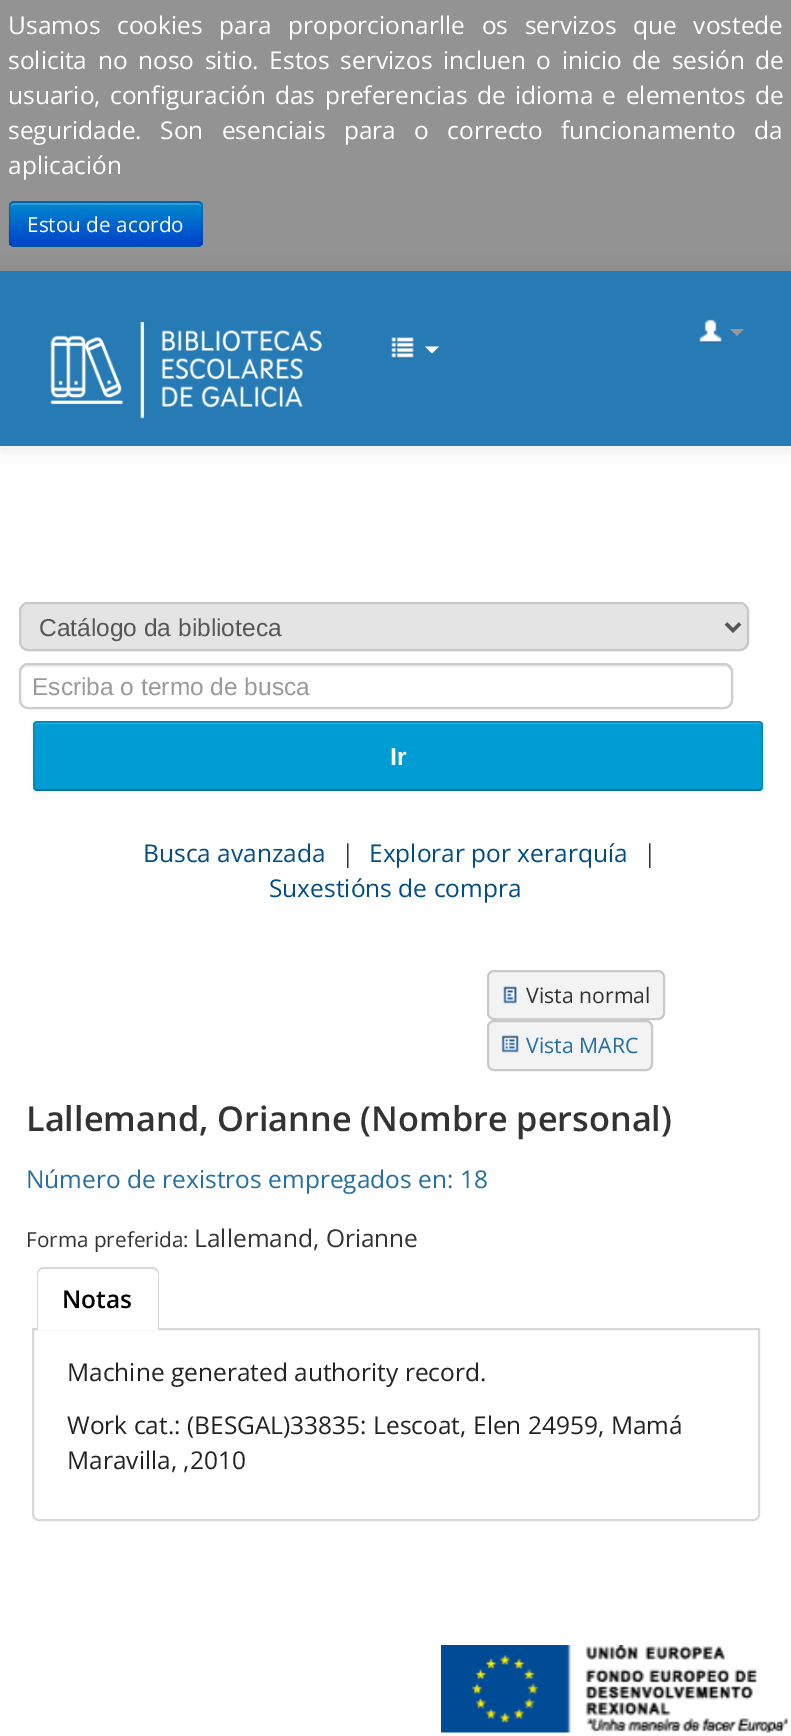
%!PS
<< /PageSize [791 1736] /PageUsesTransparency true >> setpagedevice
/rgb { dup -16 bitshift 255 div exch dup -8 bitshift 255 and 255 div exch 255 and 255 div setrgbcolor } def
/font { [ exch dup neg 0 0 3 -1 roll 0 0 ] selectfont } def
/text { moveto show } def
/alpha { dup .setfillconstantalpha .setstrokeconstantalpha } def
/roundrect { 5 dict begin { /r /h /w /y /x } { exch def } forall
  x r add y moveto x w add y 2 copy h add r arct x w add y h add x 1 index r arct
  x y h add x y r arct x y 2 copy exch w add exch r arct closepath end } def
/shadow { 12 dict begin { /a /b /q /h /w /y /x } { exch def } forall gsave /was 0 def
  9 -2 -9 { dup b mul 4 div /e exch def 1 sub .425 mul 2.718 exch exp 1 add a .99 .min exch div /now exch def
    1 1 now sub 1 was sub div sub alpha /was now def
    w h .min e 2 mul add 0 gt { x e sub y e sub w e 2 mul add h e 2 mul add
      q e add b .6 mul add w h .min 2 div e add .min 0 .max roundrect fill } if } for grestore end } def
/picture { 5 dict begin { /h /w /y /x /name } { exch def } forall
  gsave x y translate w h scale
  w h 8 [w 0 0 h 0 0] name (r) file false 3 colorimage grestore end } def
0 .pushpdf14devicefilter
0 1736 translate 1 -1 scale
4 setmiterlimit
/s1 { /OpenSans-Regular 24.5 font 16#FFFFFF rgb } def
/s2 { /OpenSans-Regular 20.75 font 16#FFFFFF rgb } def
/s3 { /LiberationSans-Regular 24.5 font 16#555555 rgb } def
/s4 { /LiberationSans-Regular 24.5 font 16#999999 rgb } def
/s5 { /LiberationSans-Bold 24.5 font 16#FFFFFF rgb } def
/s6 { /OpenSans-Regular 24.5 font 16#004D83 rgb } def
/s7 { /OpenSans-Regular 24.5 font 16#333333 rgb } def
/s8 { /OpenSans-Regular 21.25 font 16#333333 rgb } def
/s9 { /OpenSans-Regular 21.25 font 16#236FA1 rgb } def
/s10 { /OpenSans-SemiBold 34.25 font 16#333333 rgb } def
/s11 { /OpenSans-Regular 24.5 font 16#236FA1 rgb } def
/s12 { /OpenSans-Regular 20.75 font 16#333333 rgb } def
/s13 { /OpenSans-SemiBold 24.5 font 16#000000 rgb } def
/s14 { /OpenSans-Regular 24.5 font 16#222222 rgb } def
16#FFFFFF rgb
0 0 791 1736 rectfill
16#939393 rgb
0 0 791 271 rectfill
/OpenSans-Regular 24.5 font
16#FFFFFF rgb
8 34 moveto 10.25 0 32 (Usamos cookies para proporcionarlle os servizos que vostede) widthshow
8 69 moveto 4.25 0 32 (solicita no noso sitio. Estos servizos incluen o inicio de sesión de) widthshow
8 104 moveto 3 0 32 (usuario, configuración das preferencias de idioma e elementos de) widthshow
8 139 moveto 12 0 32 (seguridade. Son esenciais para o correcto funcionamento da) widthshow
(aplicación) 8 174 text
16#000000 rgb
0 273 791 175 0 9 0.1 shadow
16#006DCC rgb
9 201 194 46 5 roundrect fill
gsave
9 201 194 46 5 roundrect clip newpath
gsave 9 203 moveto 203 203 lineto 203 245 lineto 9 245 lineto closepath clip newpath
<< /ShadingType 2 /ColorSpace /DeviceRGB /Coords [106 203 106 245] /Extend [true true] /Function << /FunctionType 2 /Domain [0 1] /C0 [0 0.533 0.8] /C1 [0 0.267 0.8] /N 1 >> >> shfill grestore
grestore
0.2 alpha
16#FFFFFF rgb
14 205 moveto 198 205 lineto 200 205 201 206 201 208 curveto 201 207 lineto 201 205 199 203 197 203 curveto 15 203 lineto 13 203 12 204 11 206 curveto closepath fill
0.25 alpha
16#000000 rgb
1.8 setlinewidth
201 244.5 moveto 200 245.5 199 246 198 246 curveto 14 246 lineto 13 246 11.5 245.5 11 244.5 curveto stroke
0.1 alpha
11 244.5 moveto 10 244 9.5 242.5 9.5 241.5 curveto 9.5 206.5 lineto 9.5 205.5 10 204 11 203.5 curveto 11.5 202.5 13 202 14 202 curveto 198 202 lineto 199 202 200 202.5 201 203.5 curveto 201.5 204 202 205.5 202 206.5 curveto 202 241.5 lineto 202 242.5 201.5 244 201 244.5 curveto stroke
1 alpha
s2
(Estou de acordo) 27 232 text
16#277BB5 rgb
0 271 791 175 rectfill
(pic1.raw) 50 322 272 97 picture
(pic2.raw) 391 337 23 22 picture
16#FFFFFF rgb
425 346.5 moveto 439 346.5 lineto 432 353.5 lineto closepath fill
(pic3.raw) 699 319 23 24 picture
16#999999 rgb
730 329 moveto 744 329 lineto 737 336 lineto closepath fill
16#E4E4E4 rgb
20 603 728 47 8 roundrect gsave fill grestore
16#CAC8C8 rgb
2 setlinewidth
stroke
16#555555 rgb
3.5 setlinewidth
726 623.5 moveto 733 630.5 lineto 740 623.5 lineto stroke
s3
(Catálogo da biblioteca) 39 636 text
16#ECECEC rgb
28 667 moveto 724 667 lineto 728 667 732 670 732 674 curveto 732 670 730 665 725 665 curveto 28 665 lineto 23 665 21 670 21 674 curveto 21 670 24 667 28 667 curveto closepath fill
16#CCCCCC rgb
2 setlinewidth
20 664 712 44 8 roundrect stroke
s4
(Escriba o termo de busca) 32 695 text
16#000000 rgb
33 723 730 70 4 2 0.05 shadow
16#009CD4 rgb
33 721 730 70 4 roundrect fill
16#33B0DD rgb
37 724 moveto 760 724 lineto 761 726 lineto 761 725 761 723 759 723 curveto 37 723 lineto 35 723 35 725 35 726 curveto 35 725 36 724 37 724 curveto closepath fill
0.25 alpha
16#000000 rgb
1.8 setlinewidth
761.5 789.5 moveto 759.5 790 lineto 37 790 lineto 35 789.5 lineto stroke
0.1 alpha
35 789.5 moveto 33 787.5 34 741.5 34 735 curveto 34 730 32.5 722 37 722 curveto 759.5 722 lineto 764 722 762 730 762 735 curveto 762 741.5 763.5 787.5 761.5 789.5 curveto stroke
1 alpha
s5
(Ir) 390 765 text
s6
(Busca avanzada) 143 862 text
s7
(|) 341 862 text
s6
(Explorar por xerarquía) 369 862 text
s7
(|) 643 862 text
s6
(Suxestións de compra) 269 897 text
16#F3F3F3 rgb
488 971 176 48 6 roundrect gsave fill grestore
16#C9C9C9 rgb
2 setlinewidth
stroke
(pic4.raw) 503 986 14 18 picture
s8
(Vista normal) 526 1003 text
16#F3F3F3 rgb
488 1021 164 49 6 roundrect gsave fill grestore
16#C9C9C9 rgb
stroke
(pic5.raw) 501 1035 18 18 picture
s9
(Vista MARC) 526 1053 text
s10
(Lallemand, Orianne \(Nombre personal\)) 26 1131 text
s11
(Número de rexistros empregados en: 18) 26 1188 text
s12
(Forma preferida:) 26 1247 text
s7
(Lallemand, Orianne) 194 1247 text
16#D8D8D8 rgb
33 1329 moveto 759 1329 lineto 759 1514 lineto 759 1517.5 756.5 1520 753 1520 curveto 39 1520 lineto 35.5 1520 33 1517.5 33 1514 curveto closepath stroke
16#FFFFFF rgb
44 1267 moveto 152 1267 lineto 156 1267 159 1270 159 1274 curveto 159 1330 lineto 37 1330 lineto 37 1274 lineto 37 1270 40 1267 44 1267 curveto closepath fill
16#D8D8D8 rgb
44 1267 moveto 152 1267 lineto 156 1267 159 1270 159 1274 curveto 159 1330 lineto 37 1330 lineto 37 1274 lineto 37 1270 40 1267 44 1267 curveto closepath 44 1269 moveto 152 1269 lineto 155 1269 158 1271 158 1274 curveto 158 1330 lineto 38 1330 lineto 38 1274 lineto 38 1271 41 1269 44 1269 curveto closepath eofill
s13
(Notas) 62 1308 text
s14
(Machine generated authority record.) 67 1381 text
(Work cat.: \(BESGAL\)33835: Lescoat, Elen 24959, Mamá) 67 1434 text
(Maravilla, ,2010) 67 1469 text
(pic6.raw) 441 1645 347 88 picture
.poppdf14devicefilter showpage
